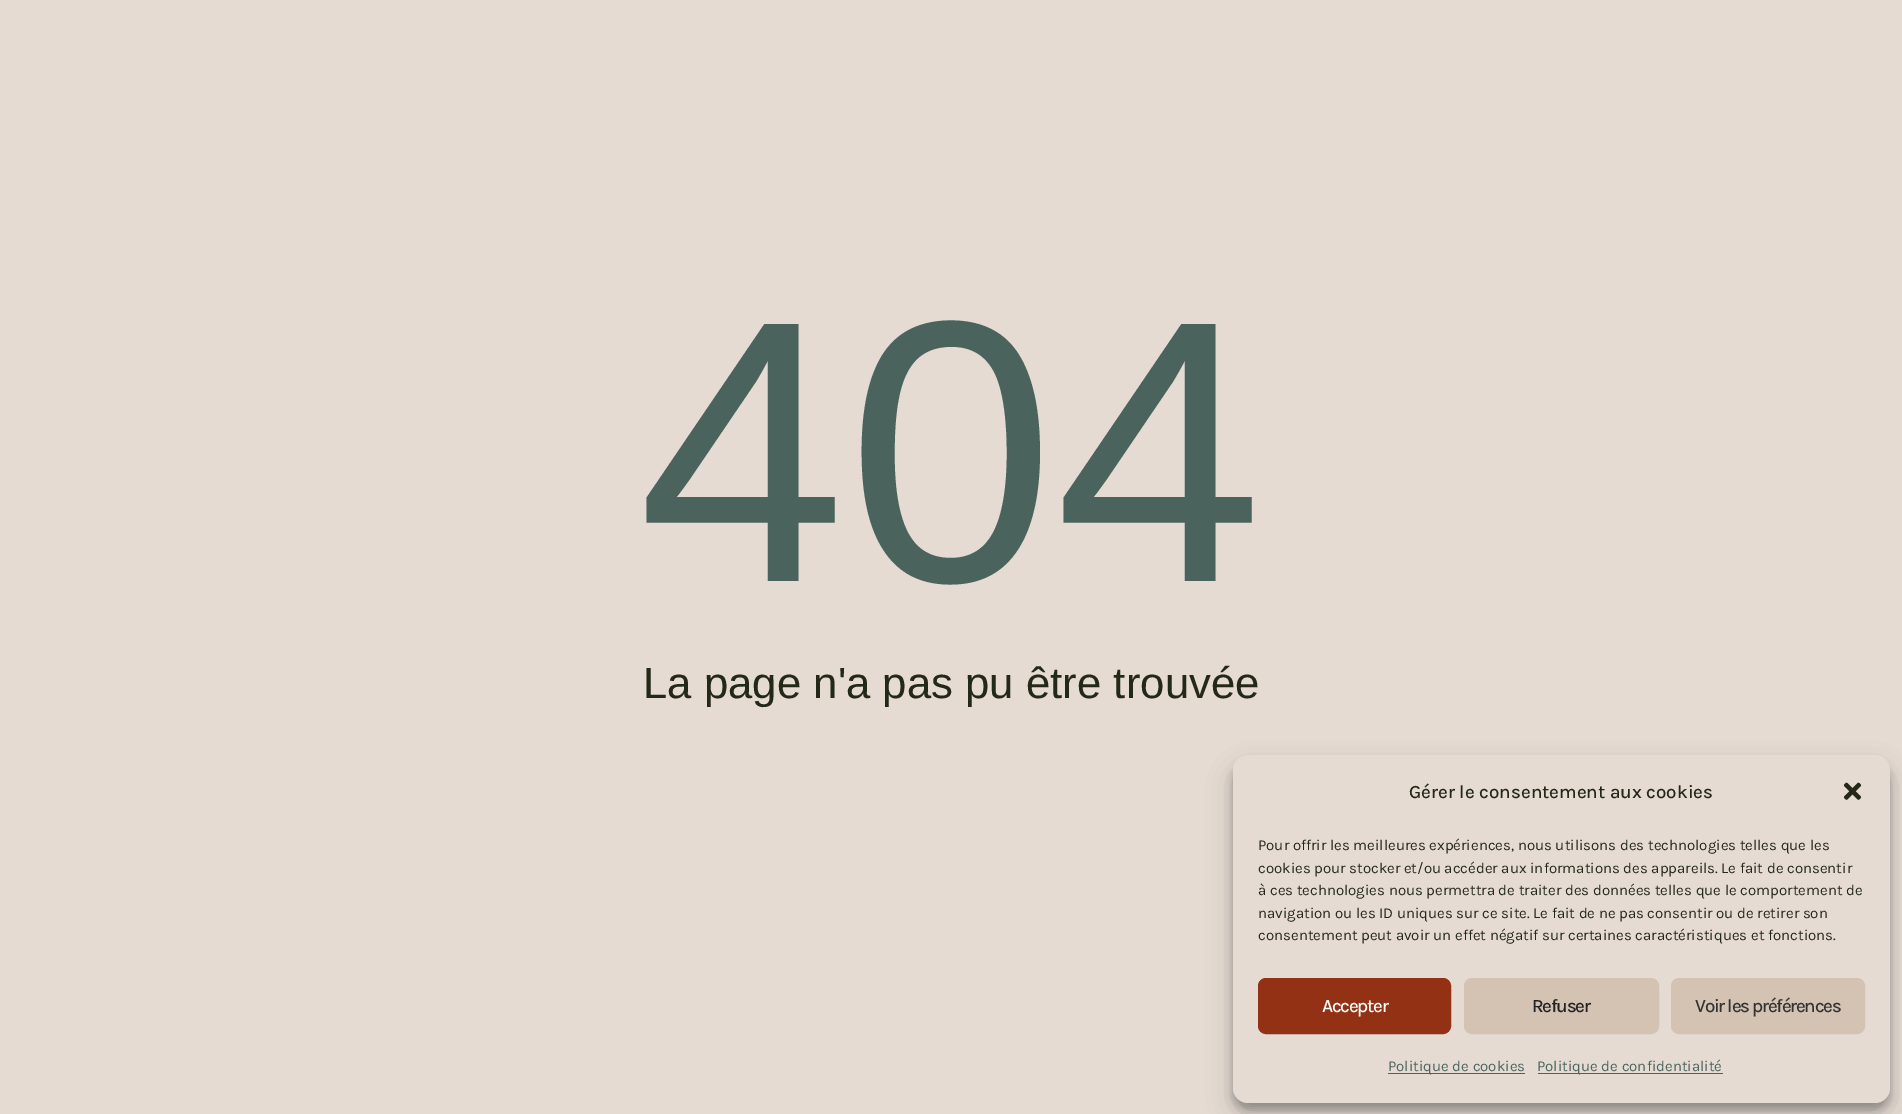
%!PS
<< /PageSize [1902 1114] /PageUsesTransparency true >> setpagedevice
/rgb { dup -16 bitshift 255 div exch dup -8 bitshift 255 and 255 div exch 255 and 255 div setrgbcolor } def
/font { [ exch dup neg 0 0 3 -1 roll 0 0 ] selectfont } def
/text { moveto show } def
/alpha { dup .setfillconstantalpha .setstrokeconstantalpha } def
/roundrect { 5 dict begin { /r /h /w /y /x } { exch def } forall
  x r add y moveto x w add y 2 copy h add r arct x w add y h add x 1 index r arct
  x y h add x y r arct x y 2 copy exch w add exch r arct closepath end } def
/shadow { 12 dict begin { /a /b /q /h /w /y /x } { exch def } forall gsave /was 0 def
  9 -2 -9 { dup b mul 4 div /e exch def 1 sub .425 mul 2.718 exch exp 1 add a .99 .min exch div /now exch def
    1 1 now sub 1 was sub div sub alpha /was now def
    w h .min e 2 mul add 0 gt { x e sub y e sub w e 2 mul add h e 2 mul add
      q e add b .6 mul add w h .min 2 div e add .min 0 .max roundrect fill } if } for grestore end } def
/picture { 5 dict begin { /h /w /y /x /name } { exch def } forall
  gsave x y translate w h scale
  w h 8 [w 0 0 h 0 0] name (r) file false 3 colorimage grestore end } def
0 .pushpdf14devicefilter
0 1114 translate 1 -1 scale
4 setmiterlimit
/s1 { /LiberationSans-Regular 375 font 16#4A635C rgb } def
/s2 { /LiberationSans-Regular 43.75 font 16#242817 rgb } def
/s3 { /Karla-Medium 18.75 font 16#242817 rgb } def
/s4 { /Karla-Regular 15 font 16#242817 rgb } def
/s5 { /Karla-Regular 15 font 16#4A635C rgb } def
16#E5DBD3 rgb
0 0 1902 1114 rectfill
s1
(404) 638 581 text
s2
(La page n'a pas pu être trouvée) 643 698 text
16#000000 rgb
1233 763 657 347 15 4 0.23 shadow
1233 768 657 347 15 12.5 0.19 shadow
16#E5DBD3 rgb
1233 755 657 348 15 roundrect fill
s3
(Gérer le consentement aux cookies) 1409 798 text
(pic1.raw) 1843 782 19 18 picture
s4
(Pour offrir les meilleures expériences, nous utilisons des technologies telles que les) 1258 850 text
(cookies pour stocker et/ou accéder aux informations des appareils. Le fait de consentir) 1258 873 text
(à ces technologies nous permettra de traiter des données telles que le comportement de) 1258 895 text
(navigation ou les ID uniques sur ce site. Le fait de ne pas consentir ou de retirer son) 1258 918 text
(consentement peut avoir un effet négatif sur certaines caractéristiques et fonctions.) 1258 940 text
16#933115 rgb
1258.5 978.5 192 55 7.5 roundrect gsave fill grestore
stroke
/Karla-Medium 18.75 font
16#FFFFFF rgb
1322 1012 moveto -1.25 0 (Accepter) ashow
16#D4C2B2 rgb
1464.5 978.5 194 55 7.5 roundrect gsave fill grestore
stroke
16#222222 rgb
1532 1012 moveto -1.25 0 (Refuser) ashow
16#D4C2B2 rgb
1671.5 978.5 193 55 7.5 roundrect gsave fill grestore
stroke
16#333333 rgb
1695 1012 moveto -1.25 0 (Voir les préférences) ashow
16#4A635C rgb
1388 1073 137 1 rectfill
s5
(Politique de cookies) 1388 1071 text
1538 1073 185 1 rectfill
(Politique de confidentialité) 1537 1071 text
.poppdf14devicefilter showpage
